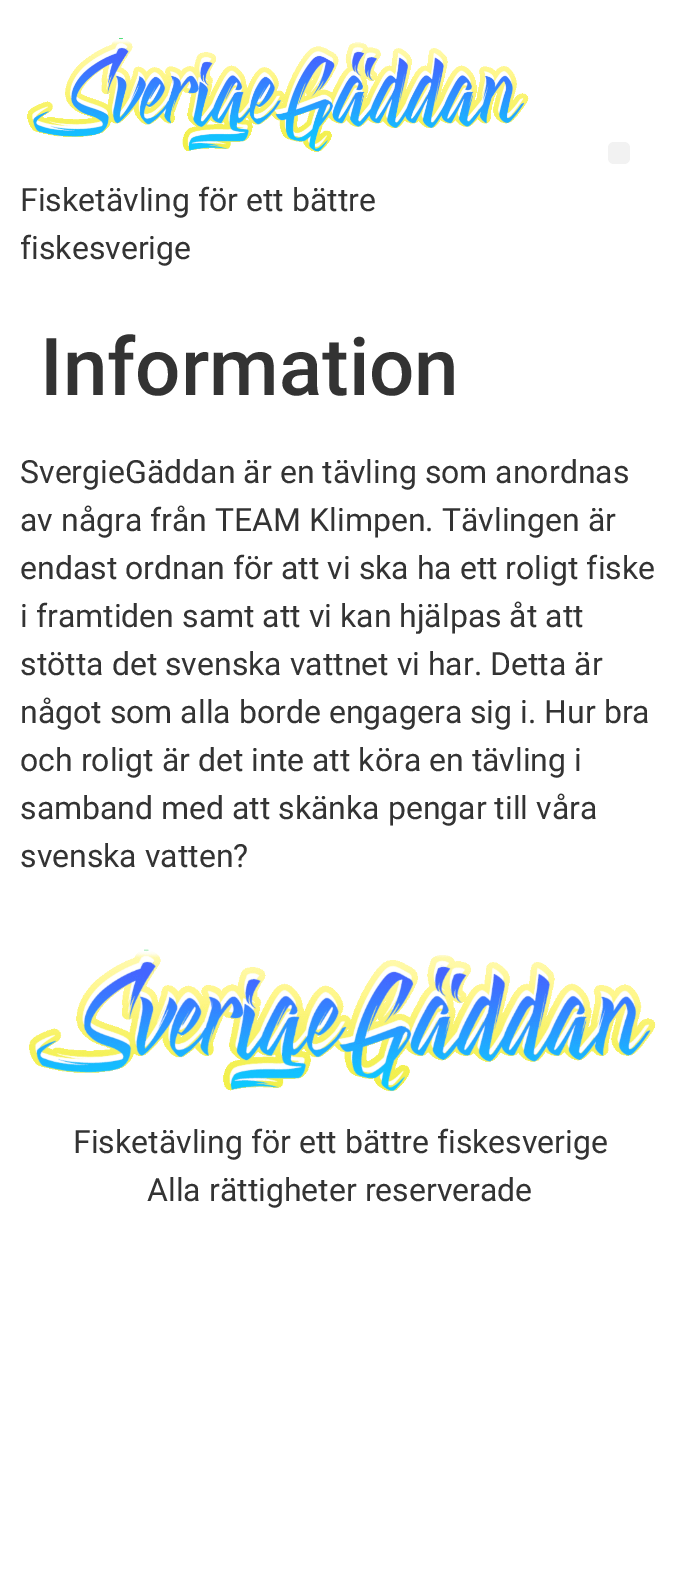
%!PS
<< /PageSize [680 1582] >> setpagedevice
/rgb { dup -16 bitshift 255 div exch dup -8 bitshift 255 and 255 div exch 255 and 255 div setrgbcolor } def
/font { [ exch dup neg 0 0 3 -1 roll 0 0 ] selectfont } def
/text { moveto show } def
/roundrect { 5 dict begin { /r /h /w /y /x } { exch def } forall
  x r add y moveto x w add y 2 copy h add r arct x w add y h add x 1 index r arct
  x y h add x y r arct x y 2 copy exch w add exch r arct closepath end } def
/picture { 5 dict begin { /h /w /y /x /name } { exch def } forall
  gsave x y translate w h scale
  w h 8 [w 0 0 h 0 0] name (r) file false 3 colorimage grestore end } def
0 1582 translate 1 -1 scale
4 setmiterlimit
/s1 { /Roboto-Regular 32 font 16#333333 rgb } def
/s2 { /Roboto-Medium 80 font 16#333333 rgb } def
16#FFFFFF rgb
0 0 680 1582 rectfill
16#F2F2F2 rgb
608 142 22 22 6 roundrect fill
(pic1.raw) 27 38 502 114 picture
s1
(Fisketävling för ett bättre) 20 211 text
(fiskesverige) 20 259 text
s2
(Information) 40 395 text
s1
(SvergieGäddan är en tävling som anordnas) 20 483 text
(av några från TEAM Klimpen. Tävlingen är) 20 531 text
(endast ordnan för att vi ska ha ett roligt fiske) 20 579 text
(i framtiden samt att vi kan hjälpas åt att) 20 627 text
(stötta det svenska vattnet vi har. Detta är) 20 675 text
(något som alla borde engagera sig i. Hur bra) 20 723 text
(och roligt är det inte att köra en tävling i) 20 771 text
(samband med att skänka pengar till våra) 20 819 text
(svenska vatten?) 20 867 text
(pic2.raw) 29 949 627 143 picture
(Fisketävling för ett bättre fiskesverige) 73 1153 text
(Alla rättigheter reserverade) 147 1201 text
showpage
